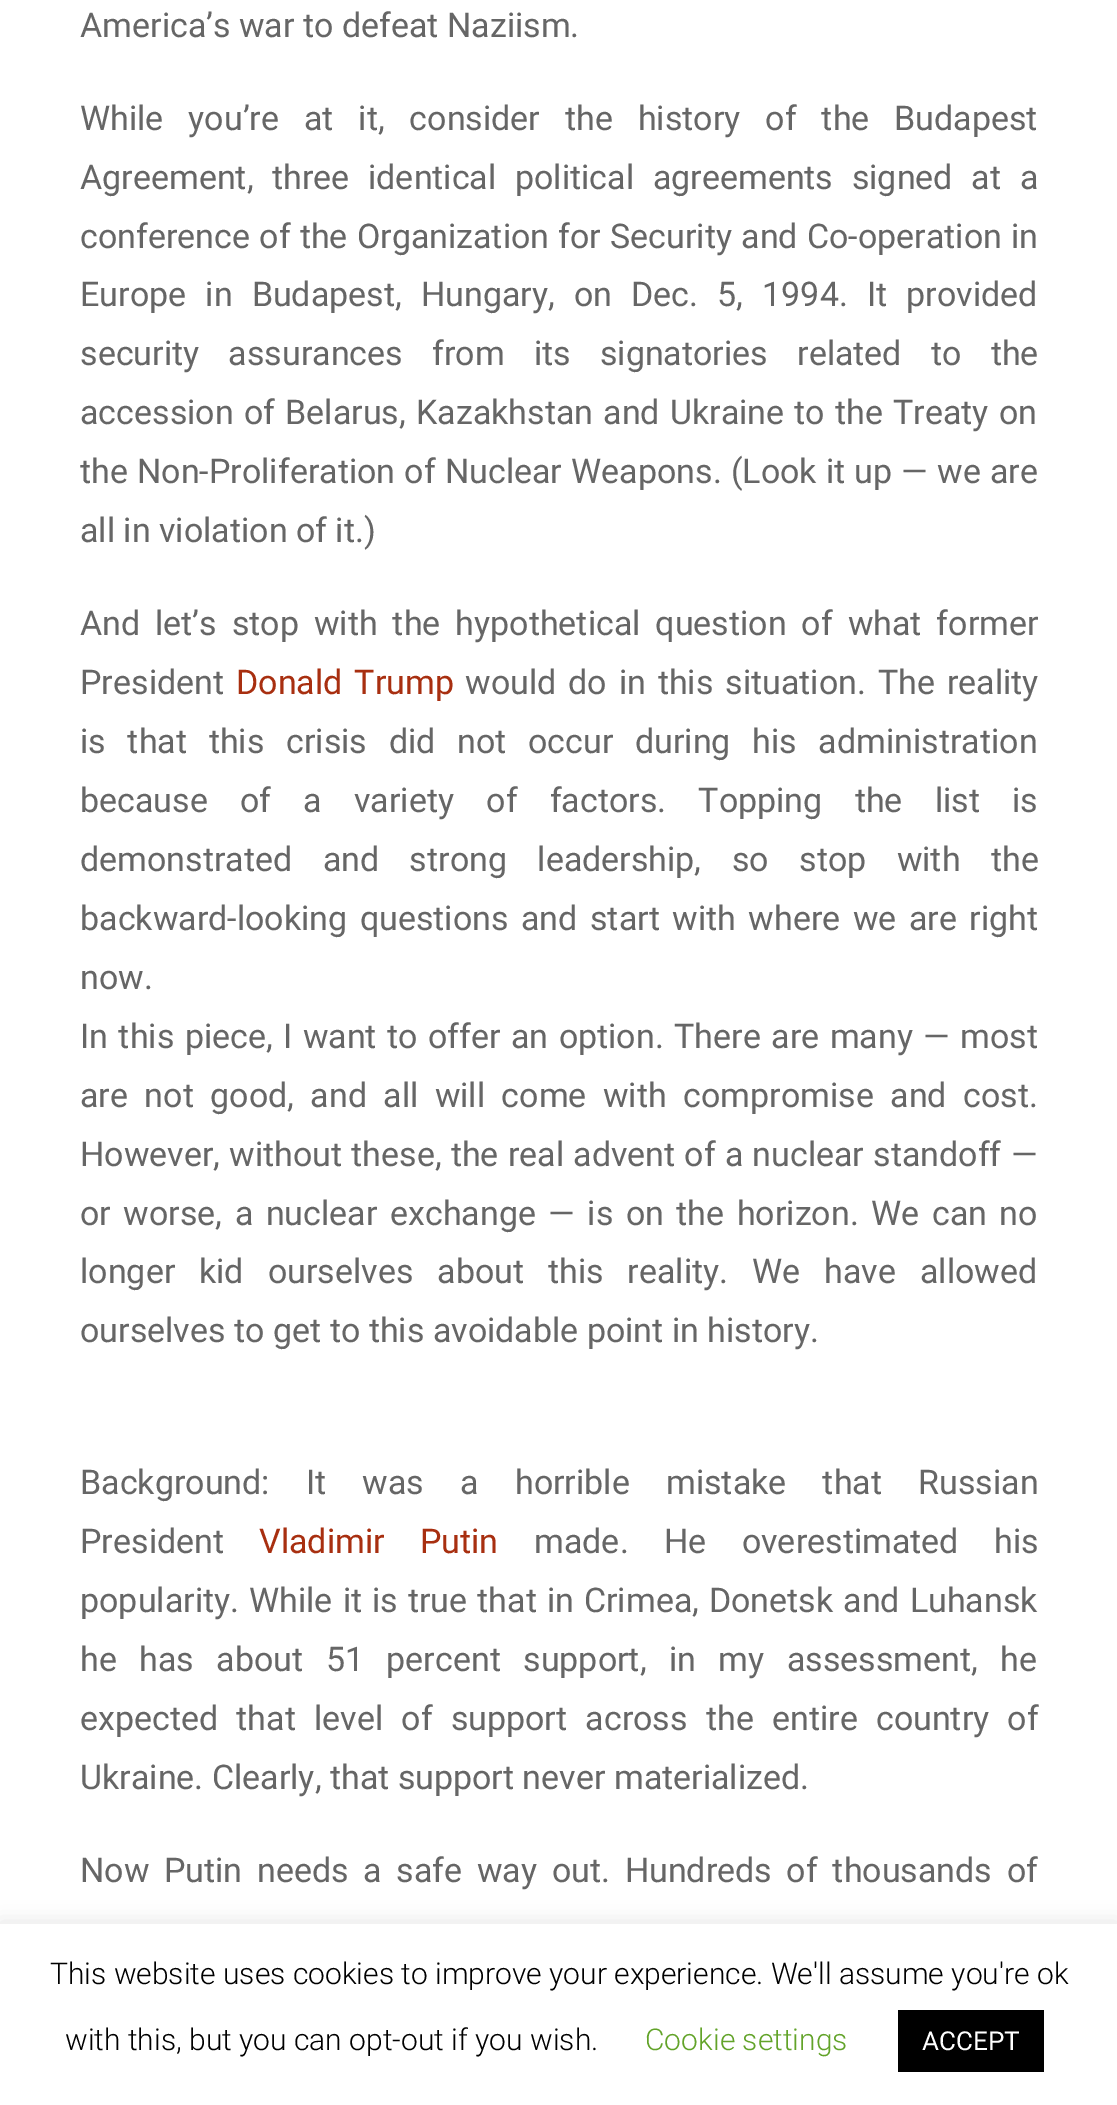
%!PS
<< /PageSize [1117 2105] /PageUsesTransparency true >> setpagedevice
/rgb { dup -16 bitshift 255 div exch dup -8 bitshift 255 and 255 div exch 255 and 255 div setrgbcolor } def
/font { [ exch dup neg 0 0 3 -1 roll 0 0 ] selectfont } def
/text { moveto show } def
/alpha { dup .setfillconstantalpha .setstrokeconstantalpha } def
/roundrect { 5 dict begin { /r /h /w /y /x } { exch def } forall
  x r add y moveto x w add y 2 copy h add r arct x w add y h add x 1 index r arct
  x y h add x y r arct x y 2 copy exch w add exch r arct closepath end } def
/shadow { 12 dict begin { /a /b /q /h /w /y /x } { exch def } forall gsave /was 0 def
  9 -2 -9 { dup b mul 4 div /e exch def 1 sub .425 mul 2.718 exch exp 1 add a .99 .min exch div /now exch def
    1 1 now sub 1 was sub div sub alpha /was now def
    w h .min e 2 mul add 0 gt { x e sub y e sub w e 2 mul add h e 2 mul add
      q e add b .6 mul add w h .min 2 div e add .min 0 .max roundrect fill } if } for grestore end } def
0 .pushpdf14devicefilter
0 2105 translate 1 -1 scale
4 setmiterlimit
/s1 { /Roboto-Regular 34 font 16#666666 rgb } def
/s2 { /Roboto-Light 30 font 16#000000 rgb } def
/s3 { /Roboto-Light 30 font 16#62A329 rgb } def
/s4 { /Roboto-Regular 26 font 16#FFFFFF rgb } def
16#FFFFFF rgb
0 0 1117 2105 rectfill
s1
(America’s war to defeat Naziism.) 80 37 text
80 130 moveto 16.5 0 32 (While you’re at it, consider the history of the Budapest) widthshow
80 189 moveto 10.25 0 32 (Agreement, three identical political agreements signed at a) widthshow
80 248 moveto 0.75 0 32 (conference of the Organization for Security and Co-operation in) widthshow
80 306 moveto 10.75 0 32 (Europe in Budapest, Hungary, on Dec. 5, 1994. It provided) widthshow
80 365 moveto 20.75 0 32 (security assurances from its signatories related to the) widthshow
80 424 moveto 1.75 0 32 (accession of Belarus, Kazakhstan and Ukraine to the Treaty on) widthshow
80 483 moveto 0.75 0 32 (the Non-Proliferation of Nuclear Weapons. \(Look it up — we are) widthshow
(all in violation of it.\)) 80 542 text
80 635 moveto 6.5 0 32 (And let’s stop with the hypothetical question of what former) widthshow
(President) 80 694 text
16#A82F10 rgb
236 694 moveto 3.5 0 32 (Donald Trump) widthshow
16#666666 rgb
465 694 moveto 3.5 0 32 (would do in this situation. The reality) widthshow
80 753 moveto 13.25 0 32 (is that this crisis did not occur during his administration) widthshow
80 812 moveto 23.75 0 32 (because of a variety of factors. Topping the list is) widthshow
80 871 moveto 22 0 32 (demonstrated and strong leadership, so stop with the) widthshow
80 930 moveto 4.1 0 32 (backward-looking questions and start with where we are right) widthshow
(now.) 80 989 text
80 1048 moveto 2 0 32 (In this piece, I want to offer an option. There are many — most) widthshow
80 1107 moveto 8 0 32 (are not good, and all will come with compromise and cost.) widthshow
80 1166 moveto 0.75 0 32 (However, without these, the real advent of a nuclear standoff —) widthshow
80 1225 moveto 4.1 0 32 (or worse, a nuclear exchange — is on the horizon. We can no) widthshow
80 1283 moveto 15.5 0 32 (longer kid ourselves about this reality. We have allowed) widthshow
(ourselves to get to this avoidable point in history.) 80 1342 text
80 1494 moveto 27.75 0 32 (Background: It was a horrible mistake that Russian) widthshow
(President) 80 1553 text
16#A82F10 rgb
259 1553 moveto 27 0 32 (Vladimir Putin) widthshow
16#666666 rgb
534 1553 moveto 27 0 32 (made. He overestimated his) widthshow
80 1612 moveto 1.6 0 32 (popularity. While it is true that in Crimea, Donetsk and Luhansk) widthshow
80 1671 moveto 14 0 32 (he has about 51 percent support, in my assessment, he) widthshow
80 1730 moveto 9.75 0 32 (expected that level of support across the entire country of) widthshow
(Ukraine. Clearly, that support never materialized.) 80 1789 text
80 1882 moveto 6.25 0 32 (Now Putin needs a safe way out. Hundreds of thousands of) widthshow
16#ACABAB rgb
0 1922 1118 182 0 10 0.3 shadow
16#FFFFFF rgb
0 1924 1117 181 rectfill
s2
(This website uses cookies to improve your experience. We'll assume you're ok) 50 1984 text
(with this, but you can opt-out if you wish.) 65 2050 text
s3
(Cookie settings) 645 2050 text
16#000000 rgb
898 2010 146 62 rectfill
s4
(ACCEPT) 922 2050 text
.poppdf14devicefilter showpage
